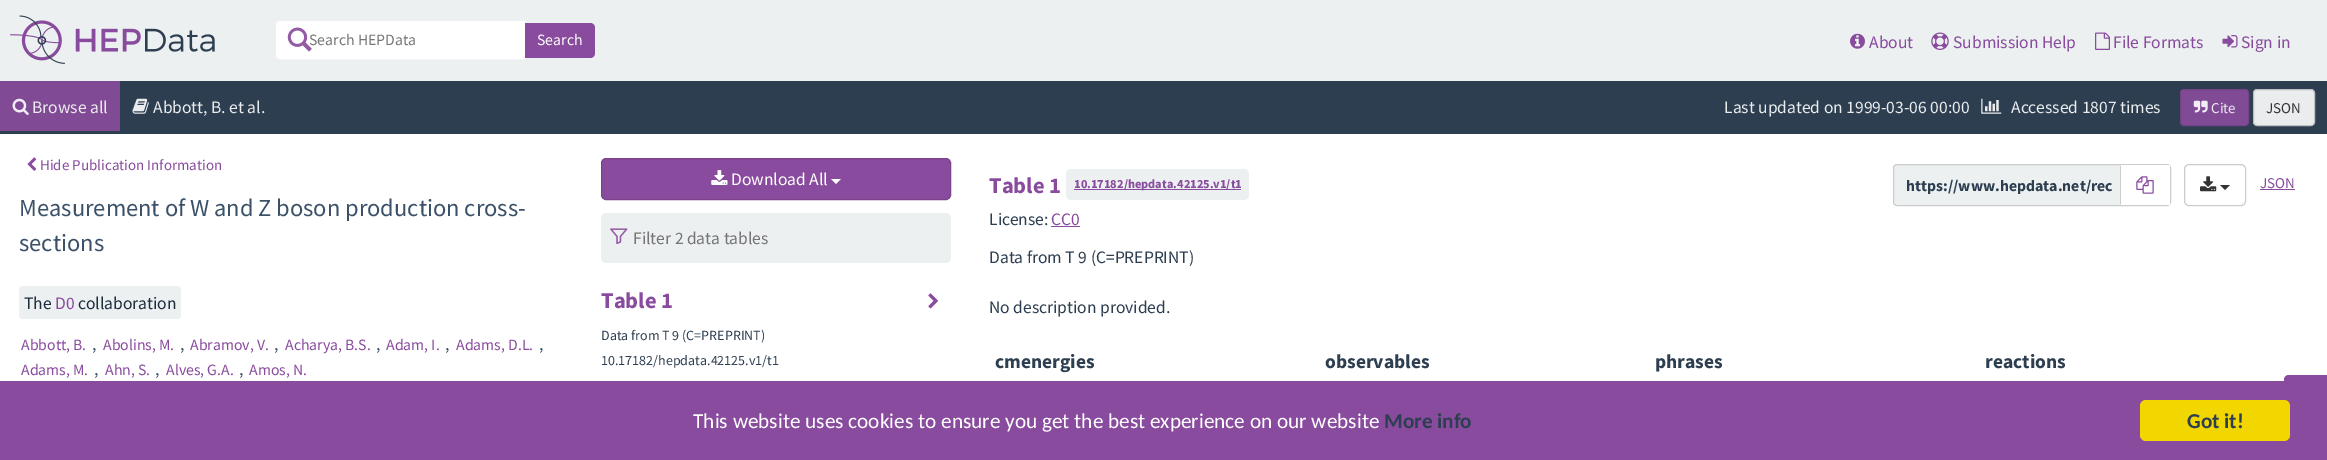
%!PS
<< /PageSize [2327 460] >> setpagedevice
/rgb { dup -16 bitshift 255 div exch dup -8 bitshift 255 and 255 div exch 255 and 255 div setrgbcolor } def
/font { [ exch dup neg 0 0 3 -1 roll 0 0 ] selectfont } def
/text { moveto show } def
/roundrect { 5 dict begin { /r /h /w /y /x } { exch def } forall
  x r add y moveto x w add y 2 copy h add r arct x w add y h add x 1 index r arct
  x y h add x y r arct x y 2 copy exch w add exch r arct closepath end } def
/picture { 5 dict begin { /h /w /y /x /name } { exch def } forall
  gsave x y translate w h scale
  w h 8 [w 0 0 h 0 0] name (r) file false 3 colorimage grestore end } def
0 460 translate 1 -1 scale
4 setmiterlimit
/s1 { /SourceSansPro-Regular 15.75 font 16#757575 rgb } def
/s2 { /SourceSansPro-Regular 15.75 font 16#FFFFFF rgb } def
/s3 { /SourceSansPro-Regular 17.5 font 16#894B9D rgb } def
/s4 { /SourceSansPro-Regular 17.5 font 16#EAECEE rgb } def
/s5 { /SourceSansPro-Regular 15 font 16#EAECEE rgb } def
/s6 { /SourceSansPro-Regular 15 font 16#323436 rgb } def
/s7 { /SourceSansPro-Regular 15 font 16#894B9D rgb } def
/s8 { /SourceSansPro-Regular 24.5 font 16#3B5169 rgb } def
/s9 { /SourceSansPro-Regular 17.5 font 16#1D2D3D rgb } def
/s10 { /SourceSansPro-Regular 15.75 font 16#894B9D rgb } def
/s11 { /SourceSansPro-Regular 17.5 font 16#3B5169 rgb } def
/s12 { /SourceSansPro-Regular 17.5 font 16#FFFFFF rgb } def
/s13 { /SourceSansPro-Regular 17.5 font 16#757575 rgb } def
/s14 { /SourceSansPro-Bold 22.5 font 16#894B9D rgb } def
/s15 { /SourceSansPro-Regular 14 font 16#2C3E50 rgb } def
/s16 { /SourceSansPro-Bold 12.4 font 16#894B9D rgb } def
/s17 { /SourceSansPro-Bold 15.75 font 16#2C3E50 rgb } def
/s18 { /SourceSansPro-Regular 17.5 font 16#2C3E50 rgb } def
/s19 { /SourceSansPro-Bold 19.5 font 16#2C3E50 rgb } def
/s20 { /Carlito-Regular 21.25 font 16#FFFFFF rgb } def
/s21 { /Carlito-Bold 21.25 font 16#2C3E50 rgb } def
16#FFFFFF rgb
0 0 2327 460 rectfill
16#ECF0F1 rgb
0 0 2327 81 rectfill
(pic1.raw) 10 15 205 49 picture
16#FFFFFF rgb
280 21 moveto 525 21 lineto 525 59 lineto 280 59 lineto 278 59 276 57 276 55 curveto 276 25 lineto 276 23 278 21 280 21 curveto closepath fill
(pic2.raw) 287 27 25 25 picture
280 21.5 moveto 524.5 21.5 lineto 524.5 58.5 lineto 280 58.5 lineto 278 58.5 276.5 57 276.5 55 curveto 276.5 25 lineto 276.5 23 278 21.5 280 21.5 curveto closepath stroke
s1
(Search HEPData) 309 45 text
16#894B9D rgb
525 23 moveto 590 23 lineto 593 23 595 25 595 28 curveto 595 53 lineto 595 56 593 58 590 58 curveto 525 58 lineto closepath fill
s2
(Search) 537 45 text
(pic3.raw) 1850 33 15 16 picture
s3
(About) 1869 48 text
(pic4.raw) 1931 32 18 18 picture
(Submission Help) 1953 48 text
(pic5.raw) 2095 32 15 18 picture
(File Formats) 2113 48 text
(pic6.raw) 2222 35 16 13 picture
(Sign in) 2241 48 text
16#2C3E50 rgb
0 81 2327 53 rectfill
16#804A95 rgb
0 81 120 50 rectfill
(pic7.raw) 12 98 17 17 picture
s4
(Browse all) 32 113 text
(pic8.raw) 132 98 17 16 picture
(Abbott, B. et al.) 153 113 text
(Last updated on 1999-03-06 00:00) 1724 113 text
(pic9.raw) 1981 98 21 16 picture
(Accessed 1807 times) 2011 113 text
16#804A95 rgb
2180.5 89.5 68 36 3.5 roundrect gsave fill grestore
16#724386 rgb
stroke
(pic10.raw) 2193 100 15 13 picture
s5
(Cite) 2211 113 text
2253.5 89.5 61 36 3.5 roundrect gsave fill grestore
16#BCBEC0 rgb
stroke
s6
(JSON) 2266 113 text
(pic11.raw) 27 157 10 14 picture
s7
(Hide Publication Information) 40 170 text
s8
(Measurement of W and Z boson production cross-) 19 216 text
(sections) 19 251 text
16#ECF0F1 rgb
19 286 162 33 4 roundrect fill
s9
(The) 24 309 text
s3
(D0) 55 309 text
s9
(collaboration) 78 309 text
s10
(Abbott, B.) 21 350 text
s11
(,) 92 350 text
s10
(Abolins, M.) 103 350 text
s11
(,) 180 350 text
s10
(Abramov, V.) 190 350 text
s11
(,) 274 350 text
s10
(Acharya, B.S.) 285 350 text
s11
(,) 376 350 text
s10
(Adam, I.) 386 350 text
s11
(,) 445 350 text
s10
(Adams, D.L.) 456 350 text
s11
(,) 539 350 text
s10
(Adams, M.) 21 375 text
s11
(,) 94 375 text
s10
(Ahn, S.) 105 375 text
s11
(,) 155 375 text
s10
(Alves, G.A.) 166 375 text
s11
(,) 239 375 text
s10
(Amos, N.) 249 375 text
601.5 158.5 349 41 4.5 roundrect gsave fill grestore
16#7A438C rgb
stroke
(pic12.raw) 711 170 17 15 picture
s12
(Download All) 731 185 text
831 179 moveto 841 179 lineto 836 184 lineto closepath fill
16#ECF0F1 rgb
601 213 350 50 5 roundrect fill
(pic13.raw) 610 228 18 17 picture
s13
(Filter 2 data tables) 633 244 text
s14
(Table 1) 601 308 text
s15
(Data from T 9 \(C=PREPRINT\)) 601 340 text
(10.17182/hepdata.42125.v1/t1) 601 365 text
(pic14.raw) 928 293 10 16 picture
s14
(Table 1) 989 193 text
16#ECF0F1 rgb
1066 169 183 31 5 roundrect fill
16#894B9D rgb
1074 189 167 1 rectfill
s16
(10.17182/hepdata.42125.v1/t1) 1074 188 text
16#ECF0F1 rgb
1893.5 164.5 277 41 3.5 roundrect gsave fill grestore
16#CCCCCC rgb
stroke
s17
(https://www.hepdata.net/rec) 1906 191 text
16#FFFFFF rgb
2120 165 50 40 rectfill
16#CCCCCC rgb
2120 205 moveto 2120 165 lineto 2121 166 lineto 2121 204 lineto closepath fill
(pic15.raw) 2136 176 18 18 picture
2184.5 164.5 61 41 4.5 roundrect stroke
(pic16.raw) 2200 176 17 16 picture
16#333333 rgb
2220 185 moveto 2230 185 lineto 2225 190 lineto closepath fill
s7
(JSON) 2260 188 text
2260 189 35 1 rectfill
s18
(License:) 989 225 text
s3
(CC0) 1051 225 text
1051 226 29 1 rectfill
s18
(Data from T 9 \(C=PREPRINT\)) 989 263 text
(No description provided.) 989 313 text
s19
(cmenergies) 995 368 text
(observables) 1325 368 text
(phrases) 1655 368 text
(reactions) 1985 368 text
16#894B9D rgb
2289 375 moveto 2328 375 lineto 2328 438 lineto 2289 438 lineto 2286 438 2284 436 2284 433 curveto 2284 380 lineto 2284 377 2286 375 2289 375 curveto closepath fill
0 381 2327 79 rectfill
s20
(This website uses cookies to ensure you get the best experience on our website) 693 428 text
s21
(More info) 1384 428 text
16#F1D600 rgb
2140 400 150 41 6 roundrect fill
s21
(Got it!) 2187 428 text
showpage
